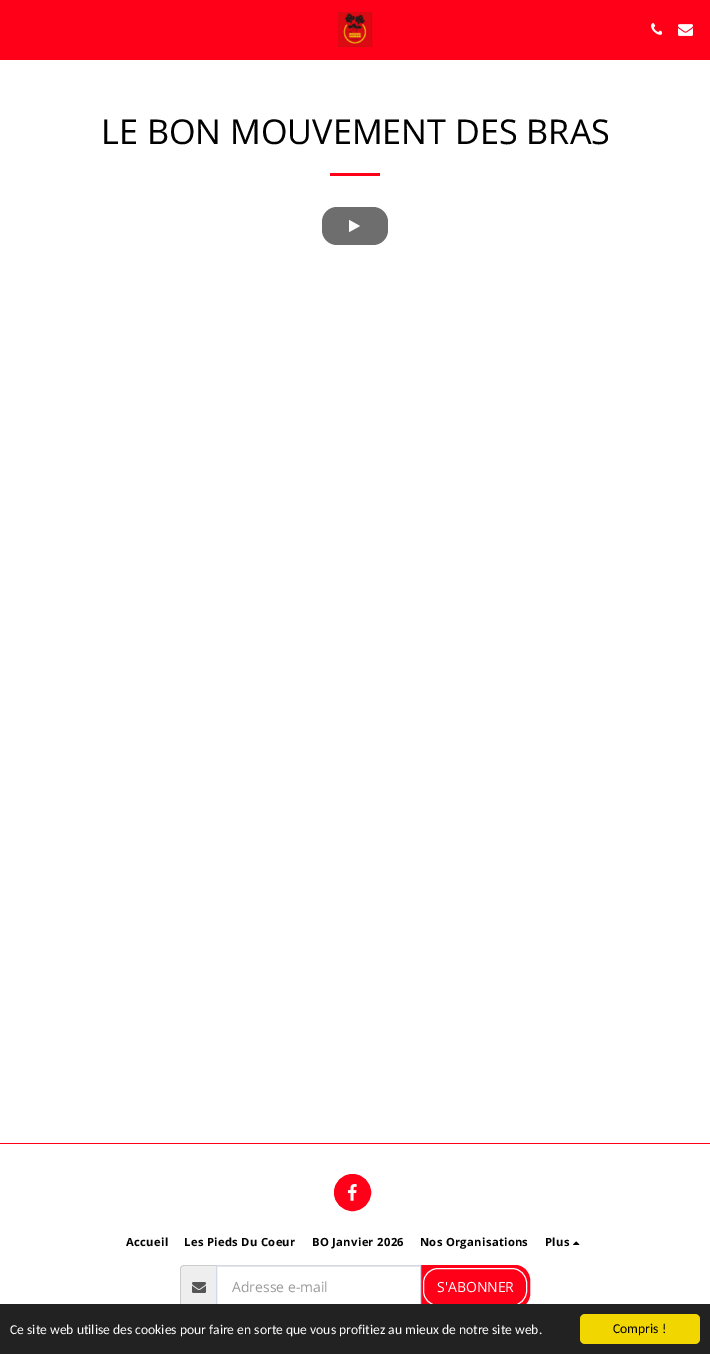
%!PS
<< /PageSize [710 1354] >> setpagedevice
/rgb { dup -16 bitshift 255 div exch dup -8 bitshift 255 and 255 div exch 255 and 255 div setrgbcolor } def
/font { [ exch dup neg 0 0 3 -1 roll 0 0 ] selectfont } def
/text { moveto show } def
/circle { newpath 0 360 arc closepath } def
/roundrect { 5 dict begin { /r /h /w /y /x } { exch def } forall
  x r add y moveto x w add y 2 copy h add r arct x w add y h add x 1 index r arct
  x y h add x y r arct x y 2 copy exch w add exch r arct closepath end } def
/picture { 5 dict begin { /h /w /y /x /name } { exch def } forall
  gsave x y translate w h scale
  w h 8 [w 0 0 h 0 0] name (r) file false 3 colorimage grestore end } def
0 1354 translate 1 -1 scale
4 setmiterlimit
/s1 { /OpenSans-Regular 34.2 font 16#000000 rgb } def
/s2 { /OpenSans-Regular 14 font 16#999999 rgb } def
/s3 { /OpenSans-Regular 14 font 16#FFFFFF rgb } def
/s4 { /Carlito-Regular 13.6 font 16#FFFFFF rgb } def
/s5 { /Carlito-Regular 13.6 font 16#000000 rgb } def
16#FF0018 rgb
0 0 710 1354 rectfill
(pic1.raw) 337 12 36 35 picture
(pic2.raw) 651 23 11 12 picture
(pic3.raw) 678 24 15 12 picture
16#FFFFFF rgb
0 60 710 1083 rectfill
s1
(LE BON MOUVEMENT DES BRAS) 101 144 text
16#FF0018 rgb
330 173 50 3 rectfill
16#6E6E6E rgb
322 207 66 38 15 roundrect fill
(pic4.raw) 349 220 11 12 picture
16#FFFFFF rgb
0 1144 710 160 rectfill
16#FF0018 rgb
352.5 1192.5 18 circle gsave fill grestore
stroke
(pic5.raw) 347 1184 10 17 picture
/OpenSans-Bold 11.25 font
16#000000 rgb
126 1246 moveto 0.3 0 (Accueil) ashow
184 1246 moveto 0.3 0 (Les Pieds Du Coeur) ashow
312 1246 moveto 0.3 0 (BO Janvier 2026) ashow
420 1246 moveto 0.3 0 (Nos Organisations) ashow
545 1246 moveto 0.3 0 (Plus) ashow
(pic6.raw) 573 1241 7 4 picture
16#EEEEEE rgb
184 1266 moveto 216 1266 lineto 216 1308 lineto 184 1308 lineto 182.5 1308 181 1306.5 181 1305 curveto 181 1269 lineto 181 1267.5 182.5 1266 184 1266 curveto closepath fill
16#CCCCCC rgb
184 1265 moveto 216 1265 lineto 216 1309 lineto 184 1309 lineto 182 1309 180 1307 180 1305 curveto 180 1269 lineto 180 1267 182 1265 184 1265 curveto closepath 184 1266 moveto 216 1266 lineto 216 1308 lineto 184 1308 lineto 182 1308 181 1307 181 1305 curveto 181 1269 lineto 181 1267 182 1266 184 1266 curveto closepath eofill
(pic7.raw) 192 1282 14 11 picture
16#ECECEC rgb
217 1266 203 1 rectfill
16#FF0018 rgb
420.5 1265.5 moveto 515 1265.5 lineto 523 1265.5 529.5 1272 529.5 1280 curveto 529.5 1294 lineto 529.5 1302 523 1308.5 515 1308.5 curveto 420.5 1308.5 lineto closepath gsave fill grestore
stroke
16#D4D7E5 rgb
216.5 1265.5 204 43 rectstroke
s2
(Adresse e-mail) 232 1292 text
16#FFFFFF rgb
423.5 1268.5 103 37 14.5 roundrect stroke
(S'ABONNER) 437 1292 text
16#222222 rgb
0 1304 710 50 rectfill
s4
(Ce site web utilise des cookies pour faire en sorte que vous profitiez au mieux de notre site web.) 10 1334 text
16#F1D600 rgb
580 1314 120 30 5 roundrect fill
s5
(Compris !) 613 1333 text
showpage
